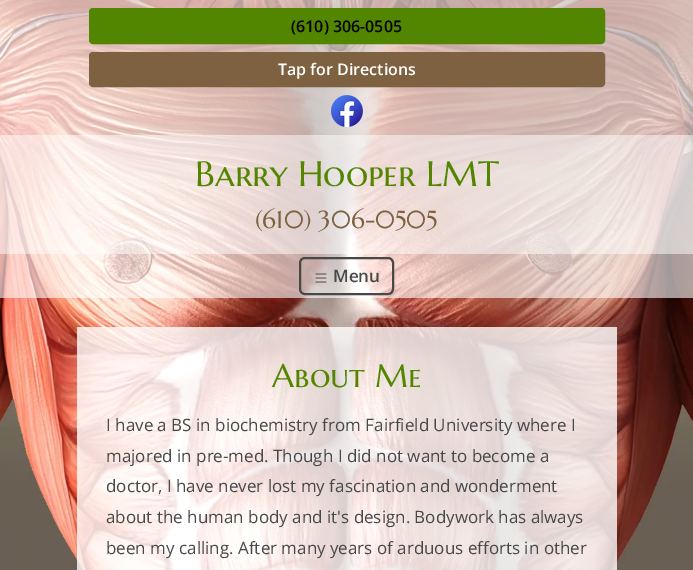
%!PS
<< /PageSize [693 570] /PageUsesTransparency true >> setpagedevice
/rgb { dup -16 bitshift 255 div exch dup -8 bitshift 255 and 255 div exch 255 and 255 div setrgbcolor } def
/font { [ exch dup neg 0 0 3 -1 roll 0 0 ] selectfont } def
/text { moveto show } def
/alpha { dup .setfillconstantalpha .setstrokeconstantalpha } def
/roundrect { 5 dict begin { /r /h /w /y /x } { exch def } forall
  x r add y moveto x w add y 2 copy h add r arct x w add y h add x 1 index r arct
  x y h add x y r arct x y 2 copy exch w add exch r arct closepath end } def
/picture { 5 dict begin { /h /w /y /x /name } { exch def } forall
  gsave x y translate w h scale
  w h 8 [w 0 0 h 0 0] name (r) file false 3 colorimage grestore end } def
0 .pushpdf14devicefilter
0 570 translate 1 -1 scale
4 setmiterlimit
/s1 { /OpenSans-SemiBold 16 font 16#000000 rgb } def
/s2 { /OpenSans-SemiBold 16 font 16#FFFFFF rgb } def
/s3 { /MarcellusSC-Regular 35.25 font 16#528600 rgb } def
/s4 { /MarcellusSC-Regular 24.75 font 16#7D6140 rgb } def
/s5 { /OpenSans-SemiBold 17 font 16#474848 rgb } def
/s6 { /MarcellusSC-Regular 32.5 font 16#528600 rgb } def
/s7 { /OpenSans-Regular 17 font 16#474848 rgb } def
16#FFFFFF rgb
0 0 693 570 rectfill
(pic1.raw) 0 0 693 570 picture
0.6 alpha
0 0 693 135 rectfill
1 alpha
16#528600 rgb
89.5 8.5 515 35 3.5 roundrect gsave fill grestore
stroke
s1
(\(610\) 306-0505) 291 32 text
16#7D6140 rgb
89.5 52.5 515 34 3.5 roundrect gsave fill grestore
stroke
s2
(Tap for Directions) 278 75 text
(pic2.raw) 331 95 32 32 picture
0.8 alpha
0 135 693 119 rectfill
1 alpha
s3
(Barry Hooper LMT) 195 186 text
s4
(\(610\) 306-0505) 255 228 text
0.6 alpha
16#FFFFFF rgb
0 254 693 44 rectfill
1 alpha
16#474848 rgb
2 setlinewidth
300 258 93 36 5 roundrect stroke
(pic3.raw) 315 273 12 10 picture
s5
(Menu) 333 282 text
0.8 alpha
16#FFFFFF rgb
77 327 540 243 rectfill
1 alpha
s6
(About Me) 272 387 text
s7
(I have a BS in biochemistry from Fairfield University where I) 106 431 text
(majored in pre-med. Though I did not want to become a) 106 462 text
(doctor, I have never lost my fascination and wonderment) 106 492 text
(about the human body and it's design. Bodywork has always) 106 523 text
(been my calling. After many years of arduous efforts in other) 106 554 text
.poppdf14devicefilter showpage
